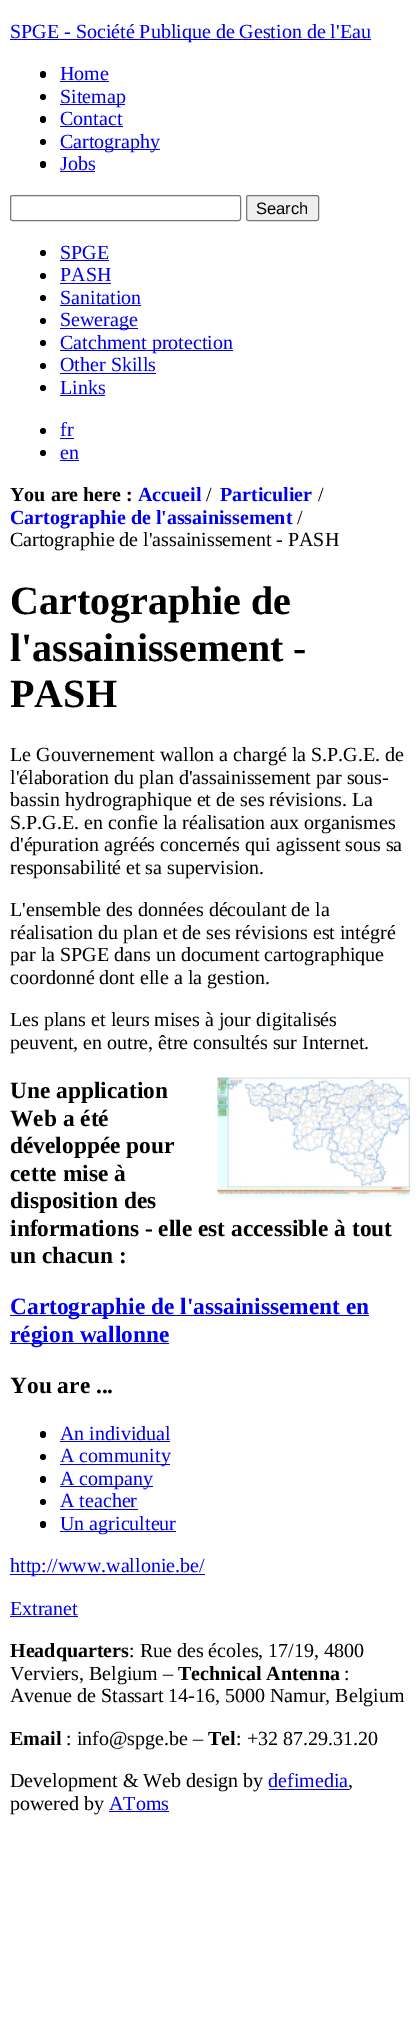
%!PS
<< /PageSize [420 2040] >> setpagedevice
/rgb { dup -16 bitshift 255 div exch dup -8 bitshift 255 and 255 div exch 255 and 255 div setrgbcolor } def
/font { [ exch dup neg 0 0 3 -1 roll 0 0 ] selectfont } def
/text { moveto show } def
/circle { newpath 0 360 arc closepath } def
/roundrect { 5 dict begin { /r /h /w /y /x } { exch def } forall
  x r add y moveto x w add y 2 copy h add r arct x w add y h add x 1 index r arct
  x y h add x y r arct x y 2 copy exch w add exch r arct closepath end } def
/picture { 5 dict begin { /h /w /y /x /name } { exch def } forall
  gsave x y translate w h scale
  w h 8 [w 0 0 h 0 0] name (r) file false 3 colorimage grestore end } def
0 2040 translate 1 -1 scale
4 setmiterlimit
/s1 { /LiberationSerif-Regular 20 font 16#0000EE rgb } def
/s2 { /LiberationSans-Regular 16.5 font 16#000000 rgb } def
/s3 { /LiberationSerif-Bold 20 font 16#000000 rgb } def
/s4 { /LiberationSerif-Bold 20 font 16#0000EE rgb } def
/s5 { /LiberationSerif-Regular 20 font 16#000000 rgb } def
/s6 { /LiberationSerif-Bold 40 font 16#000000 rgb } def
/s7 { /LiberationSerif-Bold 23.4 font 16#000000 rgb } def
/s8 { /LiberationSerif-Bold 23.4 font 16#0000EE rgb } def
16#FFFFFF rgb
0 0 420 2040 rectfill
16#0000EE rgb
10 39 361 1 rectfill
s1
(SPGE - Société Publique de Gestion de l'Eau) 10 38 text
16#000000 rgb
40 71 6 7 3 roundrect fill
s1
(Home) 60 80 text
60 81 49 1 rectfill
16#000000 rgb
43 97 3 circle fill
16#0000EE rgb
60 104 65 1 rectfill
(Sitemap) 60 103 text
16#000000 rgb
40 116 6 7 3 roundrect fill
s1
(Contact) 60 125 text
60 126 63 1 rectfill
16#000000 rgb
43 142 3 circle fill
16#0000EE rgb
60 149 100 1 rectfill
(Cartography) 60 148 text
16#000000 rgb
40 161 6 7 3 roundrect fill
s1
(Jobs) 60 170 text
60 171 35 1 rectfill
16#767676 rgb
10.5 195.5 230 25 2 roundrect stroke
16#EFEFEF rgb
246.5 195.5 72 25 2 roundrect gsave fill grestore
16#767676 rgb
stroke
s2
(Search) 256 214 text
43 253 3 circle fill
s1
(SPGE) 60 259 text
60 260 49 1 rectfill
16#000000 rgb
43 276 3 circle fill
s1
(PASH) 60 281 text
60 283 51 1 rectfill
16#000000 rgb
43 298 3 circle fill
s1
(Sanitation) 60 304 text
60 305 81 1 rectfill
16#000000 rgb
43 321 3 circle fill
16#0000EE rgb
60 328 78 1 rectfill
(Sewerage) 60 326 text
16#000000 rgb
43 343 3 circle fill
16#0000EE rgb
60 350 173 1 rectfill
(Catchment protection) 60 349 text
16#000000 rgb
43 366 3 circle fill
s1
(Other Skills) 60 371 text
60 373 96 1 rectfill
16#000000 rgb
43 388 3 circle fill
s1
(Links) 60 394 text
60 395 45 1 rectfill
16#000000 rgb
43 431 3 circle fill
s1
(fr) 60 436 text
60 438 14 1 rectfill
16#000000 rgb
43 453 3 circle fill
s1
(en) 60 459 text
60 460 19 1 rectfill
s3
(You are here :) 10 501 text
s4
(Accueil) 138 501 text
s5
(/) 206 501 text
s4
(Particulier) 220 501 text
s5
(/) 318 501 text
s4
(Cartographie de l'assainissement) 10 524 text
s5
(/) 297 524 text
(Cartographie de l'assainissement - PASH) 10 546 text
s6
(Cartographie de) 10 614 text
(l'assainissement -) 10 661 text
(PASH) 10 707 text
s5
(Le Gouvernement wallon a chargé la S.P.G.E. de) 10 761 text
(l'élaboration du plan d'assainissement par sous-) 10 784 text
(bassin hydrographique et de ses révisions. La) 10 806 text
(S.P.G.E. en confie la réalisation aux organismes) 10 829 text
(d'épuration agréés concernés qui agissent sous sa) 10 851 text
(responsabilité et sa supervision.) 10 874 text
(L'ensemble des données découlant de la) 10 916 text
(réalisation du plan et de ses révisions est intégré) 10 939 text
(par la SPGE dans un document cartographique) 10 961 text
(coordonné dont elle a la gestion.) 10 984 text
(Les plans et leurs mises à jour digitalisés) 10 1026 text
(peuvent, en outre, être consultés sur Internet.) 10 1049 text
s7
(Une application) 10 1098 text
(pic1.raw) 217 1077 193 120 picture
(Web a été) 10 1126 text
(développée pour) 10 1153 text
(cette mise à) 10 1181 text
(disposition des) 10 1208 text
(informations - elle est accessible à tout) 10 1236 text
(un chacun :) 10 1263 text
16#0000EE rgb
10 1315 359 1 rectfill
(Cartographie de l'assainissement en) 10 1314 text
10 1343 159 1 rectfill
(région wallonne) 10 1342 text
s7
(You are ...) 10 1393 text
40 1431 6 7 3 roundrect fill
s1
(An individual) 60 1440 text
60 1441 110 1 rectfill
16#000000 rgb
43 1457 3 circle fill
16#0000EE rgb
60 1464 110 1 rectfill
(A community) 60 1462 text
16#000000 rgb
40 1476 6 7 3 roundrect fill
16#0000EE rgb
60 1486 93 1 rectfill
(A company) 60 1485 text
16#000000 rgb
43 1502 3 circle fill
s1
(A teacher) 60 1507 text
60 1509 78 1 rectfill
16#000000 rgb
40 1521 6 7 3 roundrect fill
16#0000EE rgb
60 1531 116 1 rectfill
(Un agriculteur) 60 1530 text
10 1574 195 1 rectfill
(http://www.wallonie.be/) 10 1572 text
(Extranet) 10 1615 text
10 1616 68 1 rectfill
s3
(Headquarters) 10 1657 text
s5
(: Rue des écoles, 17/19, 4800) 129 1657 text
(Verviers, Belgium –) 10 1680 text
s3
(Technical Antenna) 178 1680 text
s5
(:) 344 1680 text
(Avenue de Stassart 14-16, 5000 Namur, Belgium) 10 1702 text
s3
(Email) 10 1745 text
s5
(: info@spge.be –) 66 1745 text
s3
(Tel) 208 1745 text
s5
(: +32 87.29.31.20) 236 1745 text
(Development & Web design by) 10 1787 text
s1
(defimedia) 268 1787 text
269 1789 80 1 rectfill
s5
(,) 348 1787 text
(powered by) 10 1810 text
s1
(AToms) 109 1810 text
109 1811 60 1 rectfill
showpage
